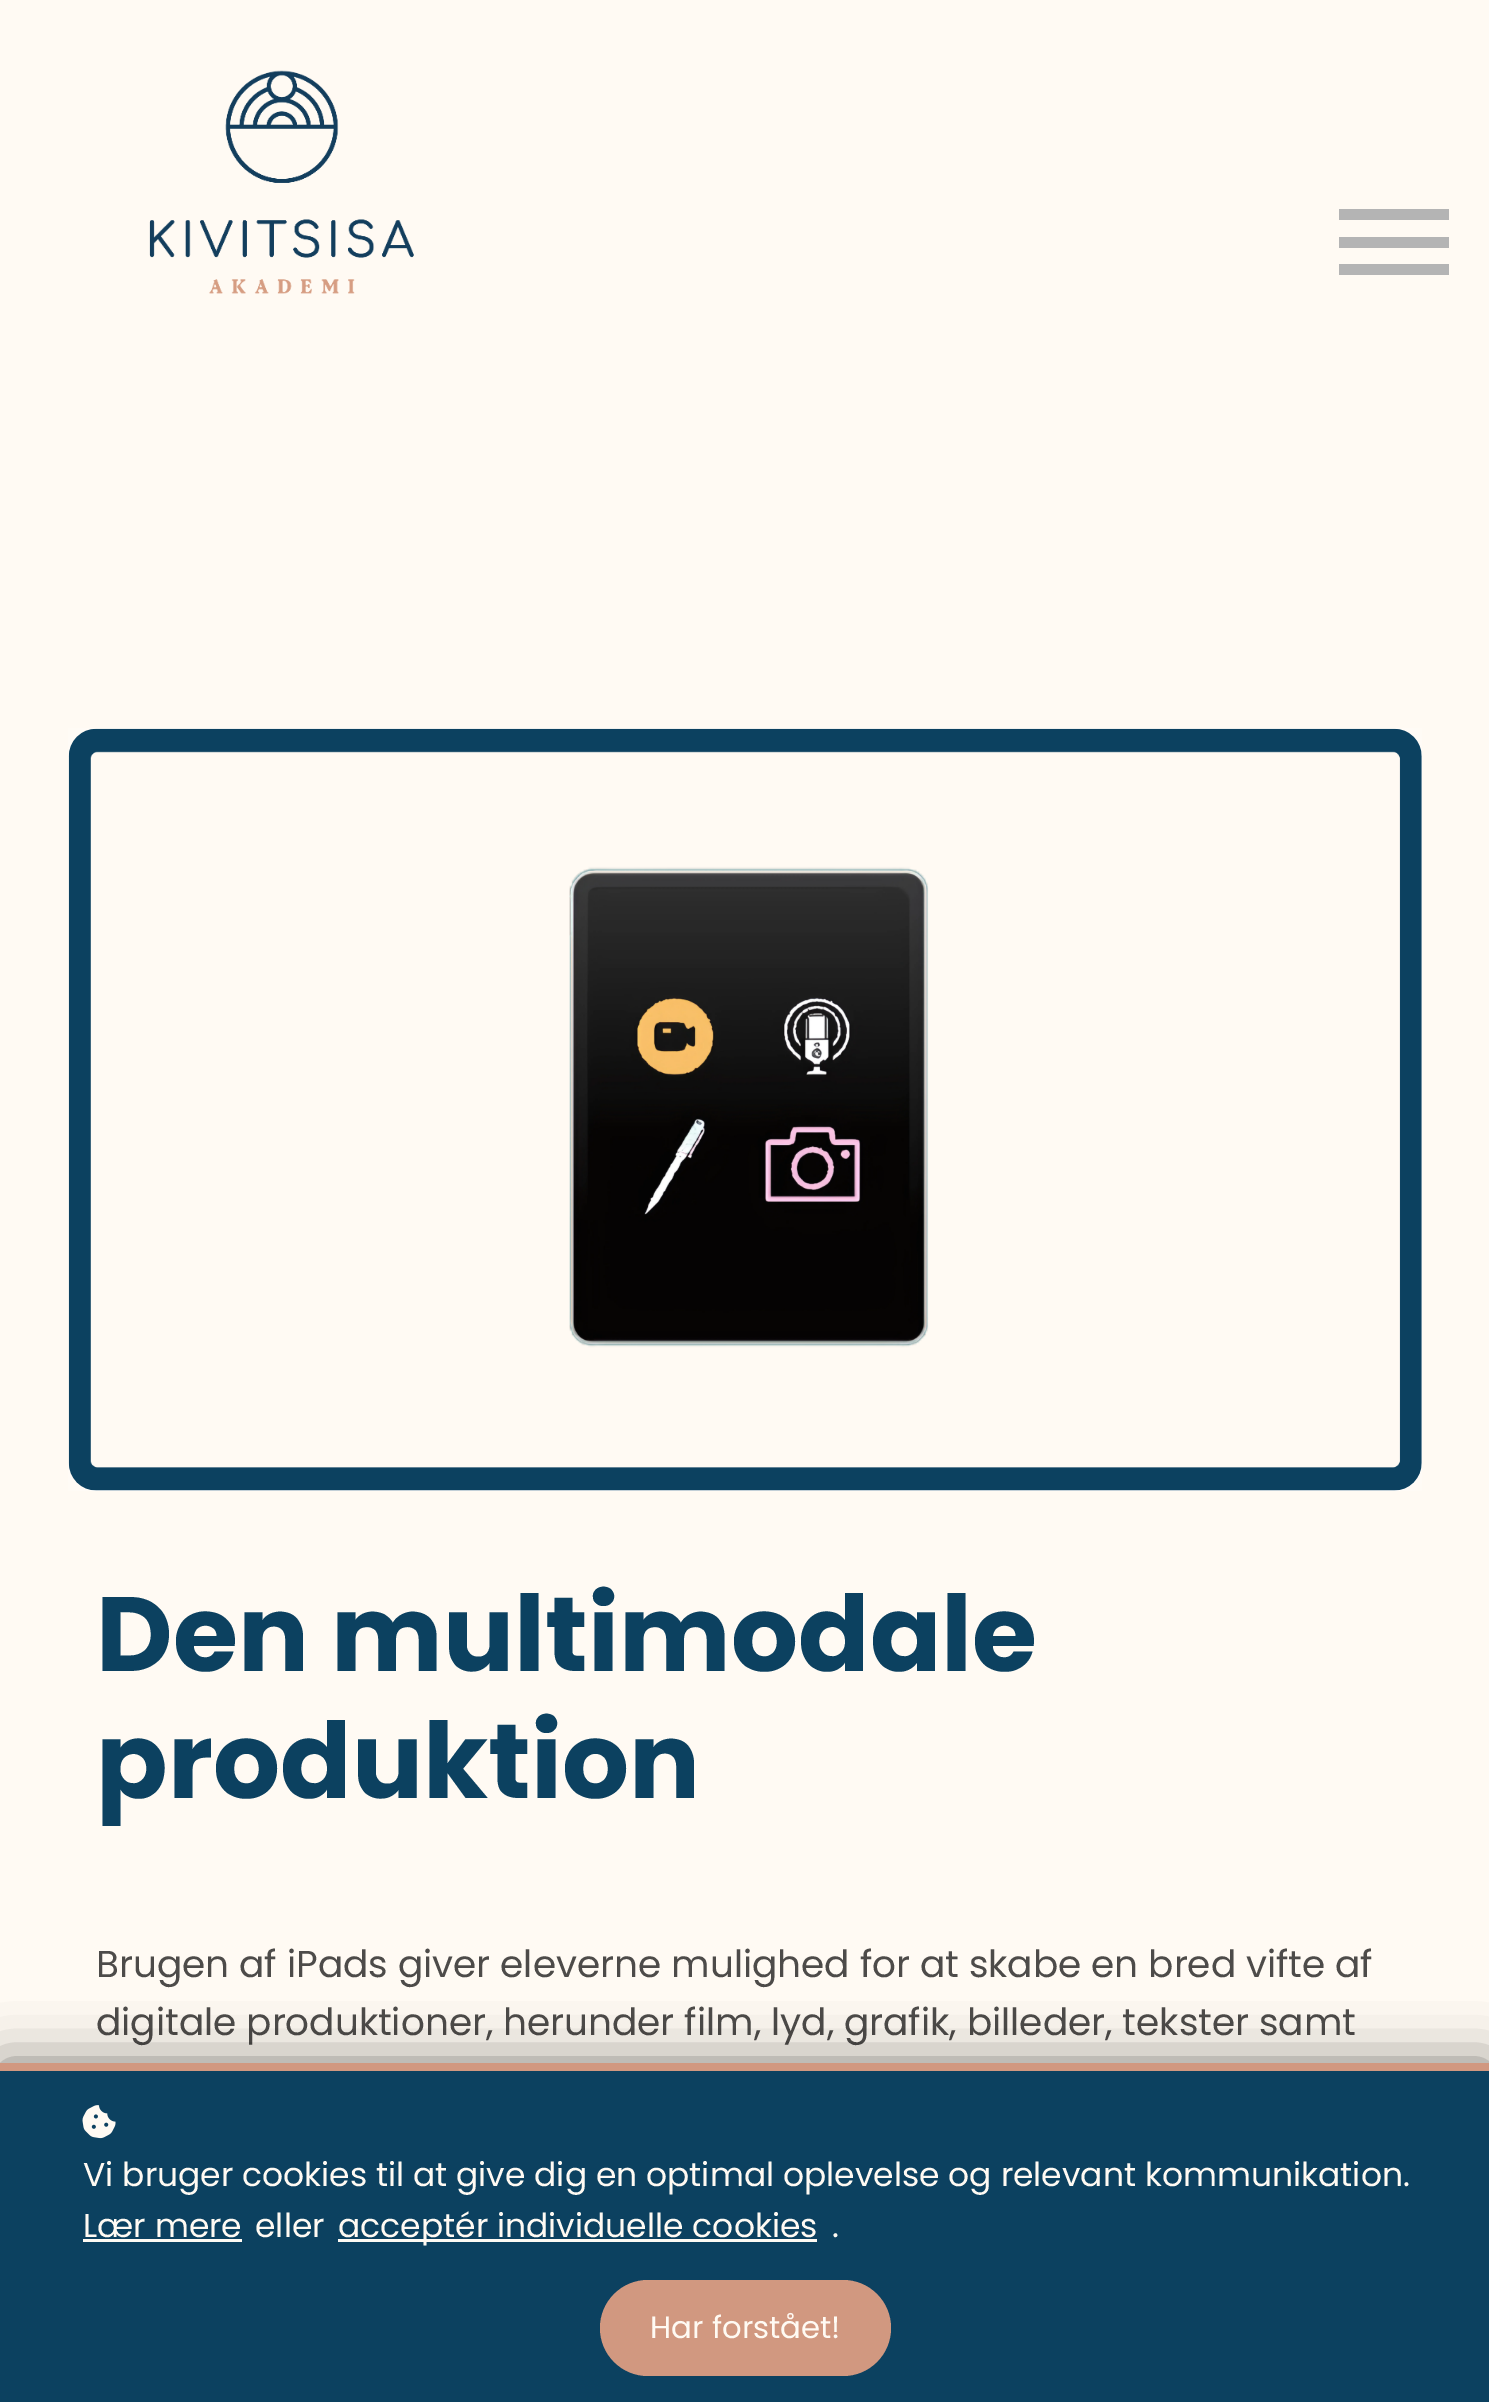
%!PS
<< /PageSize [1489 2402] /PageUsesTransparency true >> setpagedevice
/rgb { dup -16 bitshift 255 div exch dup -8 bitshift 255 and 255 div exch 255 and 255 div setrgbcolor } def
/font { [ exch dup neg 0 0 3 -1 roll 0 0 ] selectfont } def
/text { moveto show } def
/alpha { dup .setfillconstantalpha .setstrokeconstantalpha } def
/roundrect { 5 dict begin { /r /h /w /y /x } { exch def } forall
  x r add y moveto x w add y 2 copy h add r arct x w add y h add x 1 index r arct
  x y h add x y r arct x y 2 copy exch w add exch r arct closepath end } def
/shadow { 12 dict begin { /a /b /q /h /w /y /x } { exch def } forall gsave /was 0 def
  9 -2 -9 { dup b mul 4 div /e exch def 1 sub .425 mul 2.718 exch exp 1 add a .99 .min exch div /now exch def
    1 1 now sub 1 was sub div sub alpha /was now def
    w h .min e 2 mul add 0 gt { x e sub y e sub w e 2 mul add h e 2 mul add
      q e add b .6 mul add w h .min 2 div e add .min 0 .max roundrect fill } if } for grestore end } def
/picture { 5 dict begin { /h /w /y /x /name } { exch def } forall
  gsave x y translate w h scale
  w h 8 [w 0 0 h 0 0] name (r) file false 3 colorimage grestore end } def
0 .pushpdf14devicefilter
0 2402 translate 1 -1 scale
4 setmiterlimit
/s1 { /Poppins-Bold 105.5 font 16#0C4160 rgb } def
/s2 { /Poppins-Regular 37.4 font 16#4D4B49 rgb } def
/s3 { /Poppins-Regular 33 font 16#FFFAF3 rgb } def
/s4 { /Poppins-Regular 30.75 font 16#FFFAF3 rgb } def
16#FFFAF3 rgb
0 0 1489 2402 rectfill
(pic1.raw) 149 70 265 224 picture
16#B4B4B4 rgb
1339 264 110 11 rectfill
1339 209 110 11 rectfill
1339 237 110 11 rectfill
16#FFFFFF rgb
69 729 1353 762 28 roundrect fill
(pic2.raw) 68 728 1354 763 picture
s1
(Den multimodale) 96 1671 text
(produktion) 96 1798 text
s2
(Brugen af iPads giver eleverne mulighed for at skabe en bred vifte af) 96 1977 text
(digitale produktioner, herunder film, lyd, grafik, billeder, tekster samt) 96 2035 text
16#000000 rgb
0 2063 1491 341 0 27.5 0.5 shadow
16#0C4160 rgb
0 2071 1489 331 rectfill
16#D19880 rgb
0 2063 1489 8 rectfill
(pic3.raw) 82 2105 34 34 picture
s3
(Vi bruger cookies til at give dig en optimal oplevelse og relevant kommunikation.) 83 2186 text
(Lær mere) 83 2237 text
83 2239 159 3 rectfill
(eller) 255 2237 text
338 2239 479 3 rectfill
(acceptér individuelle cookies) 338 2237 text
(.) 832 2237 text
16#D19880 rgb
600 2280 291 96 48 roundrect fill
s4
(Har forstået!) 650 2338 text
.poppdf14devicefilter showpage
